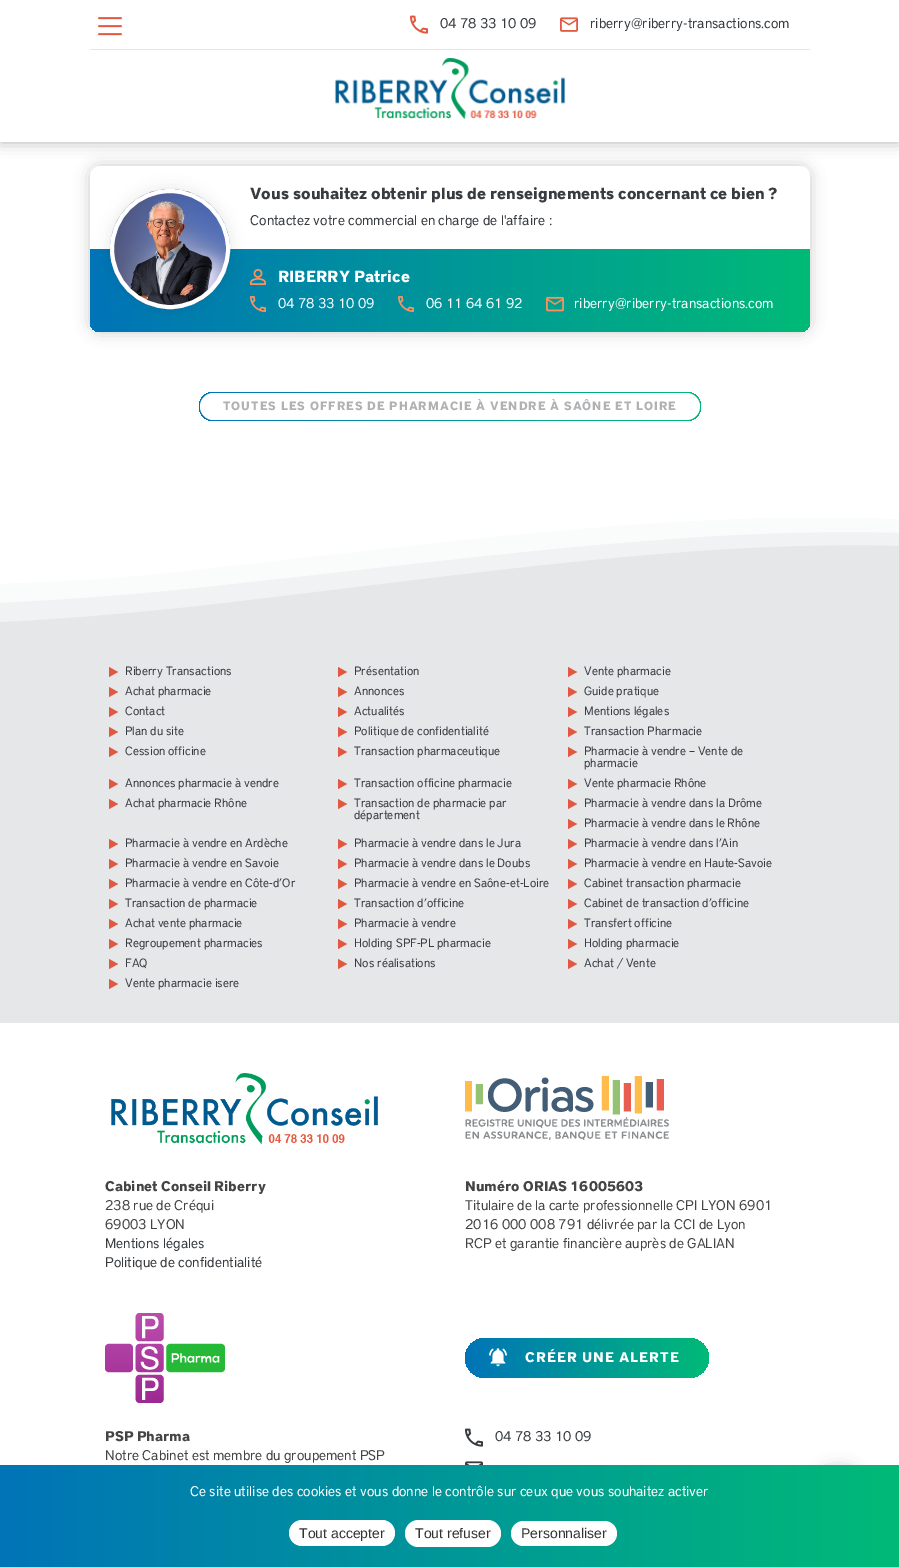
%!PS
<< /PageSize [899 1567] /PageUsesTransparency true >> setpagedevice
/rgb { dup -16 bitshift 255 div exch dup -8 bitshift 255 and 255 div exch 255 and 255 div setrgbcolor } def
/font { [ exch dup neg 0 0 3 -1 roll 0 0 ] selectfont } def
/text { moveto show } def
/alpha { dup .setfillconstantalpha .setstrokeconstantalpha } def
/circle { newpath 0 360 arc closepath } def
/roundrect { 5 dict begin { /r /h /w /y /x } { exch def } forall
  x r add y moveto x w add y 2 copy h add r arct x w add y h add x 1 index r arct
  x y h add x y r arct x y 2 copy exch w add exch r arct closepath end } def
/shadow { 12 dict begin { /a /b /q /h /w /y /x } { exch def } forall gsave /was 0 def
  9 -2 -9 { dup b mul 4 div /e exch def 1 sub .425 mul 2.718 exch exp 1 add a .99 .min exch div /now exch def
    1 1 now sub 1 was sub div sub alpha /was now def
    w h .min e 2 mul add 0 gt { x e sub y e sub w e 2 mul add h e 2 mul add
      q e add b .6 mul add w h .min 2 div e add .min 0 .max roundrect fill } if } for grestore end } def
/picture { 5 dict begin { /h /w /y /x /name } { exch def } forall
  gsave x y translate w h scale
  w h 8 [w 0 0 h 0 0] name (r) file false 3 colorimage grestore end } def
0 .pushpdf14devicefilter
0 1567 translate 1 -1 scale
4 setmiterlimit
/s1 { /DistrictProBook-Regular 14 font 16#373C41 rgb } def
/s2 { /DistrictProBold-Bold 16 font 16#373C41 rgb } def
/s3 { /DistrictProBold-Bold 16 font 16#FFFFFF rgb } def
/s4 { /DistrictProBook-Regular 14 font 16#FFFFFF rgb } def
/s5 { /DistrictProBook-Regular 12 font 16#373C41 rgb } def
/s6 { /DistrictProBold-Bold 14 font 16#444444 rgb } def
/s7 { /DistrictProBook-Regular 14 font 16#444444 rgb } def
/s8 { /LiberationSans-Regular 14 font 16#333333 rgb } def
16#FFFFFF rgb
0 0 899 1567 rectfill
16#000000 rgb
0 0 899 142 0 7.5 0.3 shadow
16#FFFFFF rgb
0 0 899 142 rectfill
(pic1.raw) 98 17 24 19 picture
16#E6E7E8 rgb
90 49 720 1 rectfill
(pic2.raw) 410 15 18 19 picture
s1
(04 78 33 10 09) 440 28 text
(pic3.raw) 560 17 18 15 picture
(riberry@riberry-transactions.com) 590 28 text
(pic4.raw) 334 58 232 61 picture
16#000000 rgb
90 166 720 166 10 7.5 0.2 shadow
16#FFFFFF rgb
90 166 720 166 10 roundrect fill
gsave 90 249 moveto 810 249 lineto 810 322 lineto 810 327.5 805.5 332 800 332 curveto 100 332 lineto 94.5 332 90 327.5 90 322 curveto closepath clip newpath
<< /ShadingType 2 /ColorSpace /DeviceRGB /Coords [90 291 810 291] /Extend [true true] /Function << /FunctionType 2 /Domain [0 1] /C0 [0 0.455 0.722] /C1 [0 0.729 0.467] /N 1 >> >> shfill grestore
16#000000 rgb
110 189 120 120 60 7.5 0.1 shadow
(pic5.raw) 110 189 120 120 picture
16#FFFFFF rgb
4 setlinewidth
170 249 58 circle stroke
s2
(Vous souhaitez obtenir plus de renseignements concernant ce bien ?) 250 199 text
s1
(Contactez votre commercial en charge de l'affaire :) 250 225 text
(pic6.raw) 250 269 16 16 picture
s3
(RIBERRY Patrice) 278 282 text
(pic7.raw) 250 296 16 16 picture
s4
(04 78 33 10 09) 278 308 text
(pic8.raw) 398 296 16 16 picture
(06 11 64 61 92) 426 308 text
(pic9.raw) 546 296 18 16 picture
(riberry@riberry-transactions.com) 574 308 text
gsave 199 392 502 29 14.5 roundrect clip newpath
<< /ShadingType 2 /ColorSpace /DeviceRGB /Coords [199 407 701 407] /Extend [true true] /Function << /FunctionType 2 /Domain [0 1] /C0 [0 0.455 0.722] /C1 [0 0.729 0.467] /N 1 >> >> shfill grestore
200 393 500 27 13.5 roundrect fill
/DistrictProBold-Bold 12 font
16#AFB1B3 rgb
223 410 moveto 1 0 (TOUTES LES OFFRES DE PHARMACIE À VENDRE À SAÔNE ET LOIRE) ashow
16#E5E7E9 rgb
0 641 899 382 rectfill
(pic10.raw) 0 518 899 123 picture
16#E05840 rgb
109 677 moveto 109 667 lineto 118 672 lineto closepath fill
s5
(Riberry Transactions) 125 675 text
16#E05840 rgb
338 677 moveto 338 667 lineto 347 672 lineto closepath fill
s5
(Présentation) 354 675 text
16#E05840 rgb
568 677 moveto 568 667 lineto 577 672 lineto closepath fill
s5
(Vente pharmacie) 584 675 text
16#E05840 rgb
109 697 moveto 109 687 lineto 118 692 lineto closepath fill
s5
(Achat pharmacie) 125 695 text
16#E05840 rgb
338 697 moveto 338 687 lineto 347 692 lineto closepath fill
s5
(Annonces) 354 695 text
16#E05840 rgb
568 697 moveto 568 687 lineto 577 692 lineto closepath fill
s5
(Guide pratique) 584 695 text
16#E05840 rgb
109 717 moveto 109 707 lineto 118 712 lineto closepath fill
s5
(Contact) 125 715 text
16#E05840 rgb
338 717 moveto 338 707 lineto 347 712 lineto closepath fill
s5
(Actualités) 354 715 text
16#E05840 rgb
568 717 moveto 568 707 lineto 577 712 lineto closepath fill
s5
(Mentions légales) 584 715 text
16#E05840 rgb
109 737 moveto 109 727 lineto 118 732 lineto closepath fill
s5
(Plan du site) 125 735 text
16#E05840 rgb
338 737 moveto 338 727 lineto 347 732 lineto closepath fill
s5
(Politique de confidentialité) 354 735 text
16#E05840 rgb
568 737 moveto 568 727 lineto 577 732 lineto closepath fill
s5
(Transaction Pharmacie) 584 735 text
16#E05840 rgb
109 757 moveto 109 747 lineto 118 752 lineto closepath fill
s5
(Cession officine) 125 755 text
16#E05840 rgb
338 757 moveto 338 747 lineto 347 752 lineto closepath fill
s5
(Transaction pharmaceutique) 354 755 text
16#E05840 rgb
568 757 moveto 568 747 lineto 577 752 lineto closepath fill
s5
(Pharmacie à vendre – Vente de) 584 755 text
(pharmacie) 584 767 text
16#E05840 rgb
109 789 moveto 109 779 lineto 118 784 lineto closepath fill
s5
(Annonces pharmacie à vendre) 125 787 text
16#E05840 rgb
338 789 moveto 338 779 lineto 347 784 lineto closepath fill
s5
(Transaction officine pharmacie) 354 787 text
16#E05840 rgb
568 789 moveto 568 779 lineto 577 784 lineto closepath fill
s5
(Vente pharmacie Rhône) 584 787 text
16#E05840 rgb
109 809 moveto 109 799 lineto 118 804 lineto closepath fill
s5
(Achat pharmacie Rhône) 125 807 text
16#E05840 rgb
338 809 moveto 338 799 lineto 347 804 lineto closepath fill
s5
(Transaction de pharmacie par) 354 807 text
(département) 354 819 text
16#E05840 rgb
568 809 moveto 568 799 lineto 577 804 lineto closepath fill
s5
(Pharmacie à vendre dans la Drôme) 584 807 text
16#E05840 rgb
568 829 moveto 568 819 lineto 577 824 lineto closepath fill
s5
(Pharmacie à vendre dans le Rhône) 584 827 text
16#E05840 rgb
109 849 moveto 109 839 lineto 118 844 lineto closepath fill
s5
(Pharmacie à vendre en Ardèche) 125 847 text
16#E05840 rgb
338 849 moveto 338 839 lineto 347 844 lineto closepath fill
s5
(Pharmacie à vendre dans le Jura) 354 847 text
16#E05840 rgb
568 849 moveto 568 839 lineto 577 844 lineto closepath fill
s5
(Pharmacie à vendre dans l’Ain) 584 847 text
16#E05840 rgb
109 869 moveto 109 859 lineto 118 864 lineto closepath fill
s5
(Pharmacie à vendre en Savoie) 125 867 text
16#E05840 rgb
338 869 moveto 338 859 lineto 347 864 lineto closepath fill
s5
(Pharmacie à vendre dans le Doubs) 354 867 text
16#E05840 rgb
568 869 moveto 568 859 lineto 577 864 lineto closepath fill
s5
(Pharmacie à vendre en Haute-Savoie) 584 867 text
16#E05840 rgb
109 889 moveto 109 879 lineto 118 884 lineto closepath fill
s5
(Pharmacie à vendre en Côte-d’Or) 125 887 text
16#E05840 rgb
338 889 moveto 338 879 lineto 347 884 lineto closepath fill
s5
(Pharmacie à vendre en Saône-et-Loire) 354 887 text
16#E05840 rgb
568 889 moveto 568 879 lineto 577 884 lineto closepath fill
s5
(Cabinet transaction pharmacie) 584 887 text
16#E05840 rgb
109 909 moveto 109 899 lineto 118 904 lineto closepath fill
s5
(Transaction de pharmacie) 125 907 text
16#E05840 rgb
338 909 moveto 338 899 lineto 347 904 lineto closepath fill
s5
(Transaction d’officine) 354 907 text
16#E05840 rgb
568 909 moveto 568 899 lineto 577 904 lineto closepath fill
s5
(Cabinet de transaction d’officine) 584 907 text
16#E05840 rgb
109 929 moveto 109 919 lineto 118 924 lineto closepath fill
s5
(Achat vente pharmacie) 125 927 text
16#E05840 rgb
338 929 moveto 338 919 lineto 347 924 lineto closepath fill
s5
(Pharmacie à vendre) 354 927 text
16#E05840 rgb
568 929 moveto 568 919 lineto 577 924 lineto closepath fill
s5
(Transfert officine) 584 927 text
16#E05840 rgb
109 949 moveto 109 939 lineto 118 944 lineto closepath fill
s5
(Regroupement pharmacies) 125 947 text
16#E05840 rgb
338 949 moveto 338 939 lineto 347 944 lineto closepath fill
s5
(Holding SPF-PL pharmacie) 354 947 text
16#E05840 rgb
568 949 moveto 568 939 lineto 577 944 lineto closepath fill
s5
(Holding pharmacie) 584 947 text
16#E05840 rgb
109 969 moveto 109 959 lineto 118 964 lineto closepath fill
s5
(FAQ) 125 967 text
16#E05840 rgb
338 969 moveto 338 959 lineto 347 964 lineto closepath fill
s5
(Nos réalisations) 354 967 text
16#E05840 rgb
568 969 moveto 568 959 lineto 577 964 lineto closepath fill
s5
(Achat / Vente) 584 967 text
16#E05840 rgb
109 989 moveto 109 979 lineto 118 984 lineto closepath fill
s5
(Vente pharmacie isere) 125 987 text
(pic11.raw) 111 1073 267 71 picture
s6
(Cabinet Conseil Riberry) 105 1191 text
s7
(238 rue de Créqui) 105 1210 text
(69003 LYON) 105 1229 text
s1
(Mentions légales) 105 1248 text
(Politique de confidentialité) 105 1267 text
(pic12.raw) 465 1076 204 64 picture
s6
(Numéro ORIAS 16005603) 465 1191 text
s7
(Titulaire de la carte professionnelle CPI LYON 6901) 465 1210 text
(2016 000 008 791 délivrée par la CCI de Lyon) 465 1229 text
(RCP et garantie financière auprès de GALIAN) 465 1248 text
gsave 465 1338 244 40 20 roundrect clip newpath
<< /ShadingType 2 /ColorSpace /DeviceRGB /Coords [465 1358 709 1358] /Extend [true true] /Function << /FunctionType 2 /Domain [0 1] /C0 [0 0.455 0.722] /C1 [0 0.729 0.467] /N 1 >> >> shfill grestore
(pic13.raw) 489 1348 18 19 picture
/DistrictProBold-Bold 14 font
16#FFFFFF rgb
525 1362 moveto 1 0 (CRÉER UNE ALERTE) ashow
(pic14.raw) 465 1428 18 19 picture
s1
(04 78 33 10 09) 495 1441 text
(pic15.raw) 465 1461 18 4 picture
(pic16.raw) 105 1313 120 90 picture
s6
(PSP Pharma) 105 1441 text
s7
(Notre Cabinet est membre du groupement PSP) 105 1460 text
16#000000 rgb
814 1467 50 50 25 7.5 0.2 shadow
gsave 0 1465 moveto 899 1465 lineto 899 1567 lineto 0 1567 lineto closepath clip newpath
<< /ShadingType 2 /ColorSpace /DeviceRGB /Coords [0 1516 899 1516] /Extend [true true] /Function << /FunctionType 2 /Domain [0 1] /C0 [0 0.455 0.722] /C1 [0 0.729 0.467] /N 1 >> >> shfill grestore
s4
(Ce site utilise des cookies et vous donne le contrôle sur ceux que vous souhaitez activer) 190 1496 text
289 1520 106 26 13 roundrect fill
s8
(Tout accepter) 299 1538 text
16#FFFFFF rgb
405 1520 96 27 13.5 roundrect fill
s8
(Tout refuser) 415 1538 text
16#FFFFFF rgb
511 1521 106 25 12.5 roundrect fill
s8
(Personnaliser) 521 1538 text
.poppdf14devicefilter showpage
